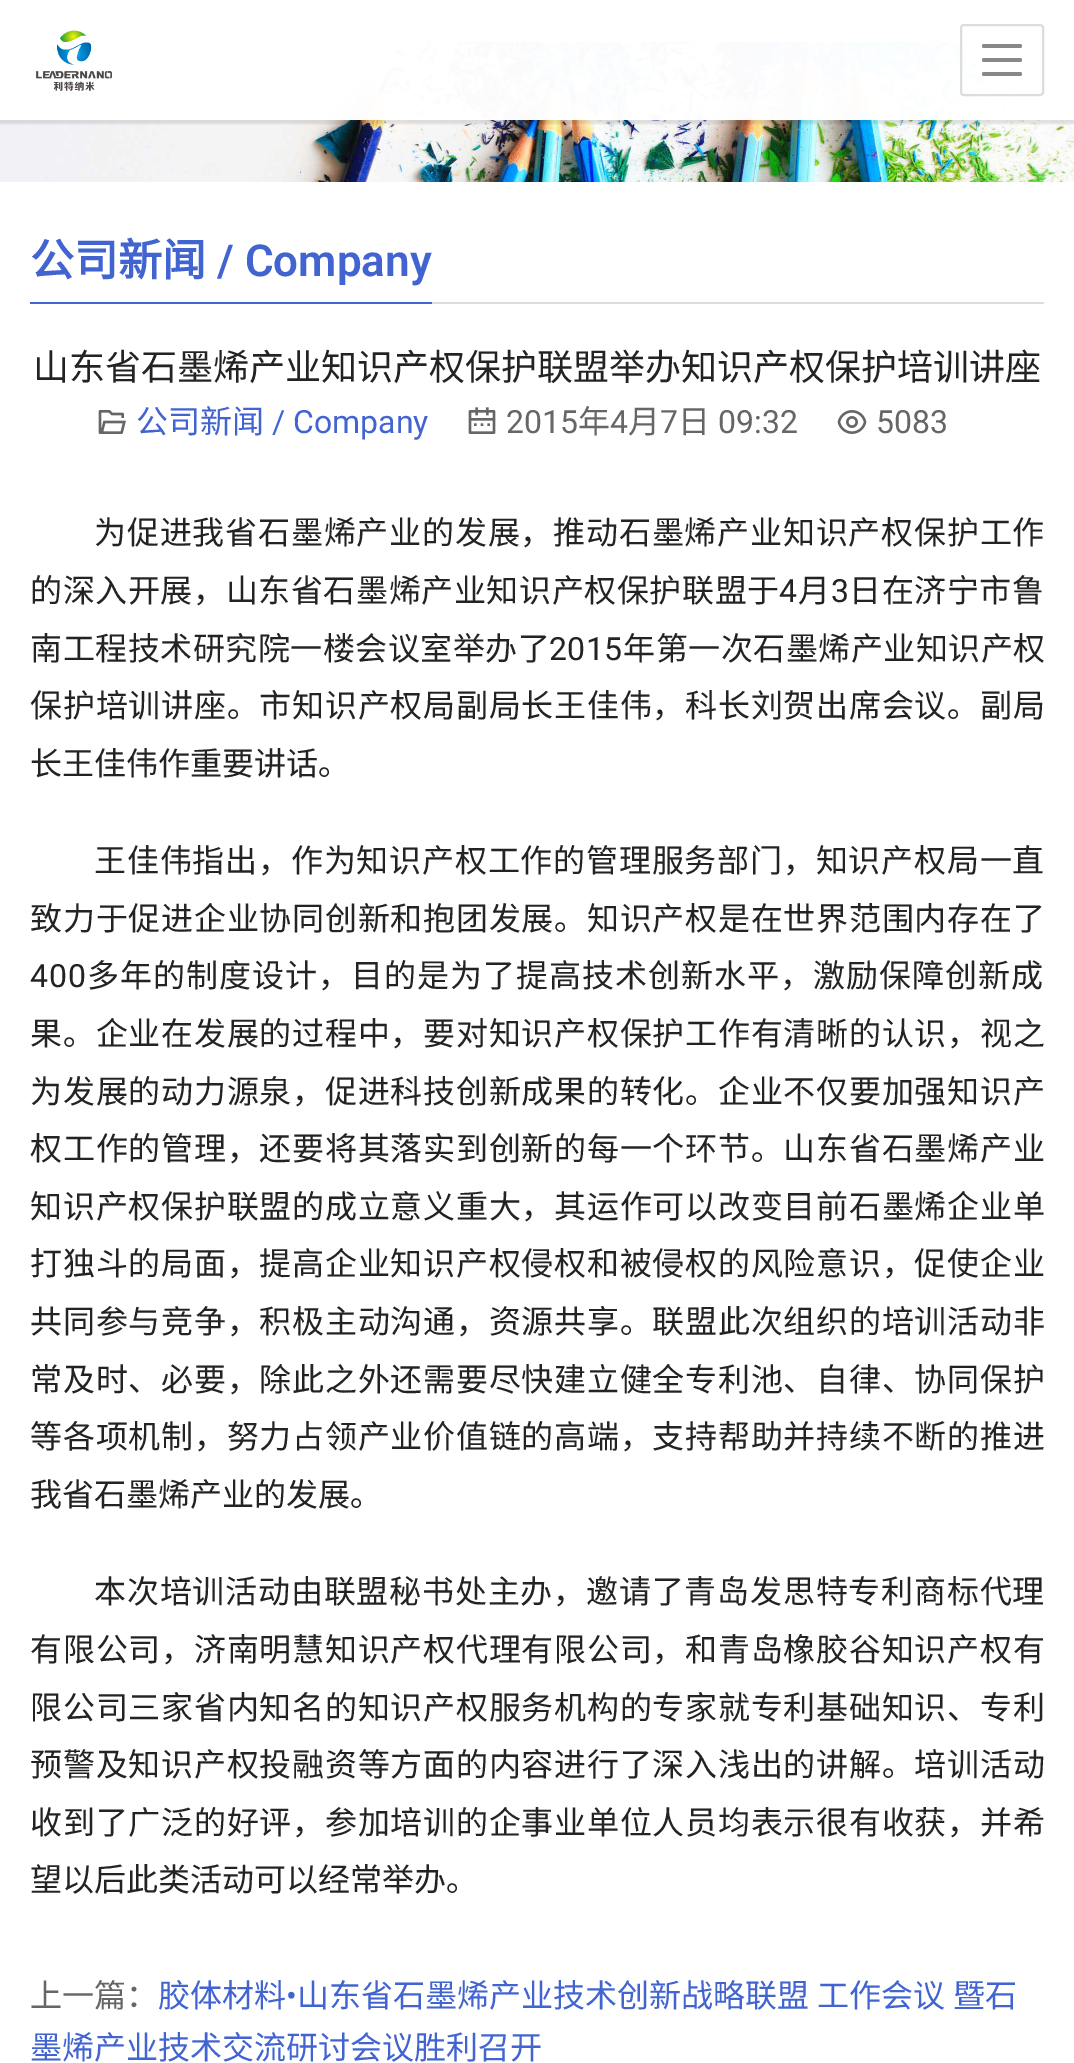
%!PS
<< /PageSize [1074 2063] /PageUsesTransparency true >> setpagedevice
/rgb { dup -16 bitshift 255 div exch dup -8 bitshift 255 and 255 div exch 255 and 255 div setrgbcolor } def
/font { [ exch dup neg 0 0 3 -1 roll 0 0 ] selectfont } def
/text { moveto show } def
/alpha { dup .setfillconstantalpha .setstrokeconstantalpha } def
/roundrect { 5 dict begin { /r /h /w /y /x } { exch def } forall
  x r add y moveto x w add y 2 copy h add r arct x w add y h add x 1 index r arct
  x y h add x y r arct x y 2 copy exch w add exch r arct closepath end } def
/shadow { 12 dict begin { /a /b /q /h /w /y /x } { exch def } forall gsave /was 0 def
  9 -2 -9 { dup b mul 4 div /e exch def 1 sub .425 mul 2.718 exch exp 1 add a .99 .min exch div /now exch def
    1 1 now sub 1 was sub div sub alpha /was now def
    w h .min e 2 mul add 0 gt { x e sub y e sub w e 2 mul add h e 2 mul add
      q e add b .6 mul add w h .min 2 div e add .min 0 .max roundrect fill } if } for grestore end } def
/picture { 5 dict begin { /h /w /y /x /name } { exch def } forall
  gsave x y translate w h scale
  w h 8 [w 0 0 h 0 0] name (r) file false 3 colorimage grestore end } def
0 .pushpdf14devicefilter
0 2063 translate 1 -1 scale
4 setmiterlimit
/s1 { /NotoSansCJKSC-Bold 44 font 16#4264D1 rgb } def
/s2 { /Roboto-SemiBold 44 font 16#4264D1 rgb } def
/s3 { /NotoSansCJKSC-Regular 36 font 16#232323 rgb } def
/s4 { /NotoSansCJKSC-Regular 32 font 16#4264D1 rgb } def
/s5 { /Roboto-Regular 32 font 16#4264D1 rgb } def
/s6 { /Roboto-Regular 32 font 16#666666 rgb } def
/s7 { /NotoSansCJKSC-Regular 32 font 16#666666 rgb } def
/s8 { /NotoSansCJKSC-Regular 32 font 16#232323 rgb } def
16#FFFFFF rgb
0 0 1074 2063 rectfill
(pic2.raw) 0 42 1074 140 picture
gsave
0 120 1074 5 rectclip
16#000000 rgb
-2 0 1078 124 0 1 0.1 shadow
grestore
0.98 alpha
0 42 1074 78 rectfill
1 alpha
(pic1.raw) 36 30 76 61 picture
16#DDDDDD rgb
2 setlinewidth
961 25 82 70 3 roundrect stroke
16#888888 rgb
982 44 40 4 2 roundrect fill
982 58 40 4 2 roundrect fill
982 72 40 4 2 roundrect fill
16#DDDDDD rgb
432 302 612 2 rectfill
16#4264D1 rgb
30 302 402 2 rectfill
s1
(公司新闻) 30 276 text
s2
(/ Company) 217 276 text
s3
(山东省石墨烯产业知识产权保护联盟举办知识产权保护培训讲座) 33 380 text
(pic3.raw) 98 410 28 24 picture
s4
(公司新闻) 136 433 text
s5
(/ Company) 272 433 text
(pic4.raw) 468 407 28 27 picture
s6
(2015) 506 433 text
s7
(年) 578 433 text
s6
(4) 610 433 text
s7
(月) 628 433 text
s6
(7) 660 433 text
s7
(日) 678 433 text
s6
(09:32) 718 433 text
(pic5.raw) 837 410 30 24 picture
(5083) 876 433 text
/NotoSansCJKSC-Regular 32 font
16#232323 rgb
94 544 moveto 0.8 0 (为促进我省石墨烯产业的发展，推动石墨烯产业知识产权保护工作) ashow
30 602 moveto 0.6 0 (的深入开展，山东省石墨烯产业知识产权保护联盟于) ashow
/Roboto-Regular 32 font
779 602 moveto 0.6 0 (4) ashow
/NotoSansCJKSC-Regular 32 font
798 602 moveto 0.6 0 (月) ashow
/Roboto-Regular 32 font
831 602 moveto 0.6 0 (3) ashow
/NotoSansCJKSC-Regular 32 font
849 602 moveto 0.6 0 (日在济宁市鲁) ashow
30 660 moveto 0.5 0 (南工程技术研究院一楼会议室举办了) ashow
/Roboto-Regular 32 font
549 660 moveto 0.5 0 (2015) ashow
/NotoSansCJKSC-Regular 32 font
623 660 moveto 0.5 0 (年第一次石墨烯产业知识产权) ashow
30 717 moveto 0.75 0 (保护培训讲座。市知识产权局副局长王佳伟，科长刘贺出席会议。副局) ashow
(长王佳伟作重要讲话。) 30 775 text
94 872 moveto 0.8 0 (王佳伟指出，作为知识产权工作的管理服务部门，知识产权局一直) ashow
30 930 moveto 0.75 0 (致力于促进企业协同创新和抱团发展。知识产权是在世界范围内存在了) ashow
/Roboto-Regular 32 font
30 987 moveto 1 0 (400) ashow
/NotoSansCJKSC-Regular 32 font
87 987 moveto 1 0 (多年的制度设计，目的是为了提高技术创新水平，激励保障创新成) ashow
30 1045 moveto 0.75 0 (果。企业在发展的过程中，要对知识产权保护工作有清晰的认识，视之) ashow
30 1103 moveto 0.75 0 (为发展的动力源泉，促进科技创新成果的转化。企业不仅要加强知识产) ashow
30 1160 moveto 0.75 0 (权工作的管理，还要将其落实到创新的每一个环节。山东省石墨烯产业) ashow
30 1218 moveto 0.75 0 (知识产权保护联盟的成立意义重大，其运作可以改变目前石墨烯企业单) ashow
30 1275 moveto 0.75 0 (打独斗的局面，提高企业知识产权侵权和被侵权的风险意识，促使企业) ashow
30 1333 moveto 0.75 0 (共同参与竞争，积极主动沟通，资源共享。联盟此次组织的培训活动非) ashow
30 1391 moveto 0.75 0 (常及时、必要，除此之外还需要尽快建立健全专利池、自律、协同保护) ashow
30 1448 moveto 0.75 0 (等各项机制，努力占领产业价值链的高端，支持帮助并持续不断的推进) ashow
(我省石墨烯产业的发展。) 30 1506 text
94 1603 moveto 0.8 0 (本次培训活动由联盟秘书处主办，邀请了青岛发思特专利商标代理) ashow
30 1661 moveto 0.75 0 (有限公司，济南明慧知识产权代理有限公司，和青岛橡胶谷知识产权有) ashow
30 1719 moveto 0.75 0 (限公司三家省内知名的知识产权服务机构的专家就专利基础知识、专利) ashow
30 1776 moveto 0.75 0 (预警及知识产权投融资等方面的内容进行了深入浅出的讲解。培训活动) ashow
30 1834 moveto 0.75 0 (收到了广泛的好评，参加培训的企事业单位人员均表示很有收获，并希) ashow
(望以后此类活动可以经常举办。) 30 1891 text
s7
(上一篇：) 30 2007 text
s4
(胶体材料) 158 2007 text
s5
(•) 286 2007 text
/NotoSansCJKSC-Regular 32 font
297 2007 moveto 1 0 32 (山东省石墨烯产业技术创新战略联盟 工作会议 暨石) widthshow
(墨烯产业技术交流研讨会议胜利召开) 30 2059 text
.poppdf14devicefilter showpage
